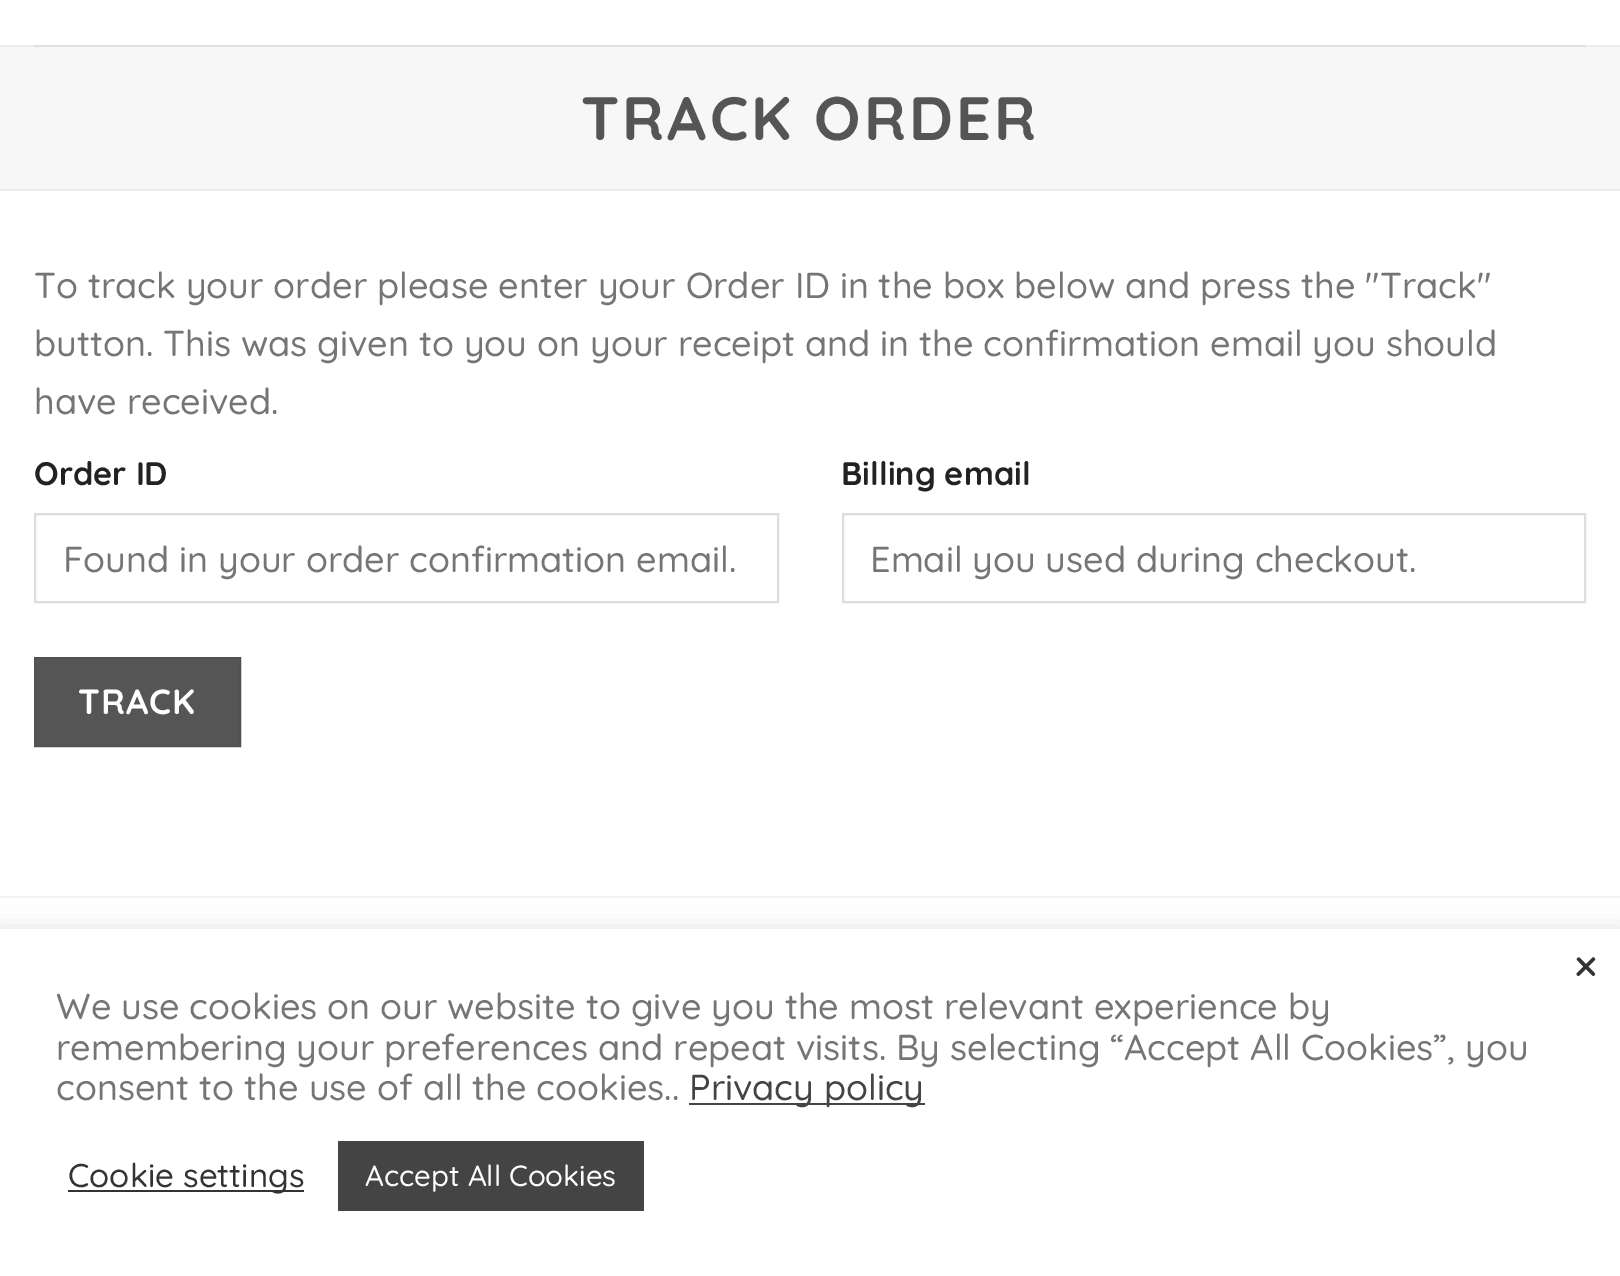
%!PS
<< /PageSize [1620 1276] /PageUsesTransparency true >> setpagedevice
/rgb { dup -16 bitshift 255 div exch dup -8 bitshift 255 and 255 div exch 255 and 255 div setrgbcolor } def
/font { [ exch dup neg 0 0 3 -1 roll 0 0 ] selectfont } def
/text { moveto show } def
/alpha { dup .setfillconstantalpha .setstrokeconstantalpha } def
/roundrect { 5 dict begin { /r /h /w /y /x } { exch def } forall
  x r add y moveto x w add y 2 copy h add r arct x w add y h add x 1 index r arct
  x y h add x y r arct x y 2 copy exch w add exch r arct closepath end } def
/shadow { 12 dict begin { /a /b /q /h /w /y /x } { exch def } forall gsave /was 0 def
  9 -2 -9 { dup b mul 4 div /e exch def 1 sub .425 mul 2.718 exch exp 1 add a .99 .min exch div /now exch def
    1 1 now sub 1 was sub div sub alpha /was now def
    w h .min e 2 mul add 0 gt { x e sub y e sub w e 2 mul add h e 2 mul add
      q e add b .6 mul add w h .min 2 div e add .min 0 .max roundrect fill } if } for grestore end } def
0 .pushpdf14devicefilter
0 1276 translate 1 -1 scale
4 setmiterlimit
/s1 { /Quicksand-Medium 36 font 16#757575 rgb } def
/s2 { /Quicksand-Bold 32.5 font 16#222222 rgb } def
/s3 { /Quicksand-Medium 50 font 16#333333 rgb } def
/s4 { /Quicksand-Medium 33 font 16#333333 rgb } def
/s5 { /Quicksand-Medium 29.25 font 16#FFFFFF rgb } def
/s6 { /Quicksand-Medium 36 font 16#444444 rgb } def
16#FFFFFF rgb
0 0 1620 1276 rectfill
16#ECECEC rgb
0 45 1620 2 rectfill
16#E0E0E0 rgb
34 45 1552 2 rectfill
16#F7F7F7 rgb
0 47 1620 142 rectfill
16#ECECEC rgb
0 189 1620 2 rectfill
/Quicksand-Bold 61.25 font
16#555555 rgb
581 140 moveto 3 0 (TRACK ORDER) ashow
s1
(To track your order please enter your Order ID in the box below and press the "Track") 34 298 text
(button. This was given to you on your receipt and in the confirmation email you should) 34 356 text
(have received.) 34 414 text
s2
(Order ID) 34 485 text
16#DDDDDD rgb
2 setlinewidth
35 514 743 88 rectstroke
s1
(Found in your order confirmation email.) 63 572 text
s2
(Billing email) 841 485 text
16#DDDDDD rgb
843 514 742 88 rectstroke
s1
(Email you used during checkout.) 870 572 text
16#555555 rgb
35 658 moveto 240 658 lineto 240 746 lineto 35 746 lineto closepath gsave fill grestore
16#515151 rgb
stroke
/Quicksand-Bold 35 font
16#FFFFFF rgb
78 714 moveto 1 0 (TRACK) ashow
16#F2F2F2 rgb
0 896 1620 2 rectfill
16#ACABAB rgb
0 927 1620 349 0 11 0.3 shadow
16#FFFFFF rgb
0 929 1620 347 rectfill
s3
(×) 1574 983 text
68 1190 236 2 rectfill
s4
(Cookie settings) 68 1187 text
16#444444 rgb
338 1141 306 70 rectfill
s5
(Accept All Cookies) 365 1186 text
s1
(We use cookies on our website to give you the most relevant experience by) 56 1019 text
(remembering your preferences and repeat visits. By selecting “Accept All Cookies”, you) 56 1060 text
(consent to the use of all the cookies..) 56 1100 text
16#444444 rgb
689 1103 236 2 rectfill
(Privacy policy) 689 1100 text
.poppdf14devicefilter showpage
